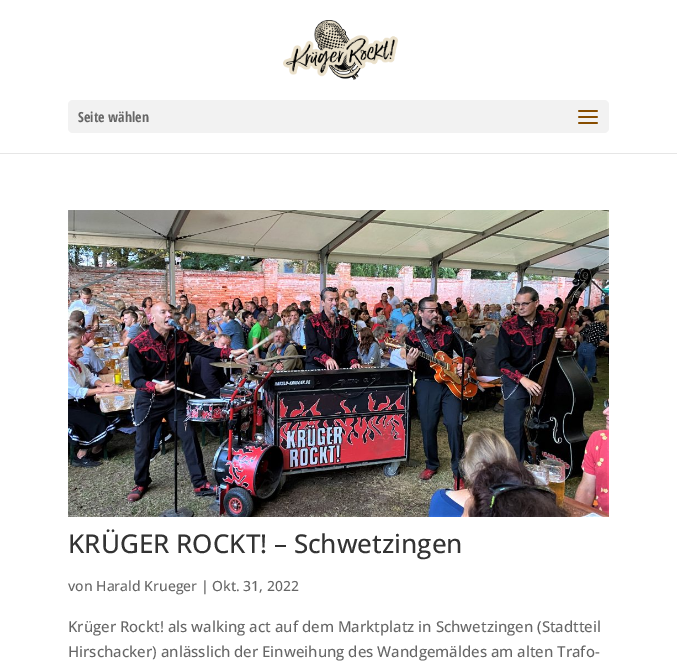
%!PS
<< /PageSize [677 664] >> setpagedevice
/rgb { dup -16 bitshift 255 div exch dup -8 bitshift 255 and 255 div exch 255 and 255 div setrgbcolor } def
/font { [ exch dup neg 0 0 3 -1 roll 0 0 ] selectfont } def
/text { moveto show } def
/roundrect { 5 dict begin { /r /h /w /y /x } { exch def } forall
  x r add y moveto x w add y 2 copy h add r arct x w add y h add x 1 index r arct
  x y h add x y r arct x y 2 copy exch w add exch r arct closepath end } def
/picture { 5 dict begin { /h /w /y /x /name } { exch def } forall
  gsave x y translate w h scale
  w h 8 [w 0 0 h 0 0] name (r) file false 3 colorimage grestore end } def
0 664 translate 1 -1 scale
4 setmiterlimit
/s1 { /OpenSansCondensed-Bold 14 font 16#666666 rgb } def
/s2 { /OpenSans-Medium 26 font 16#333333 rgb } def
/s3 { /OpenSans-Medium 14 font 16#666666 rgb } def
/s4 { /OpenSans-Medium 15 font 16#666666 rgb } def
16#FFFFFF rgb
0 0 677 664 rectfill
16#E6E6E6 rgb
0 153 677 1 rectfill
(pic1.raw) 283 20 115 60 picture
16#F2F2F2 rgb
68 100 541 33 5 roundrect fill
s1
(Seite wählen) 78 122 text
(pic2.raw) 578 110 20 14 picture
(pic3.raw) 68 210 541 307 picture
s2
(KRÜGER ROCKT! – Schwetzingen) 68 553 text
s3
(von Harald Krueger | Okt. 31, 2022) 68 591 text
s4
(Krüger Rockt! als walking act auf dem Marktplatz in Schwetzingen \(Stadtteil) 68 632 text
(Hirschacker\) anlässlich der Einweihung des Wandgemäldes am alten Trafo-) 68 657 text
showpage
